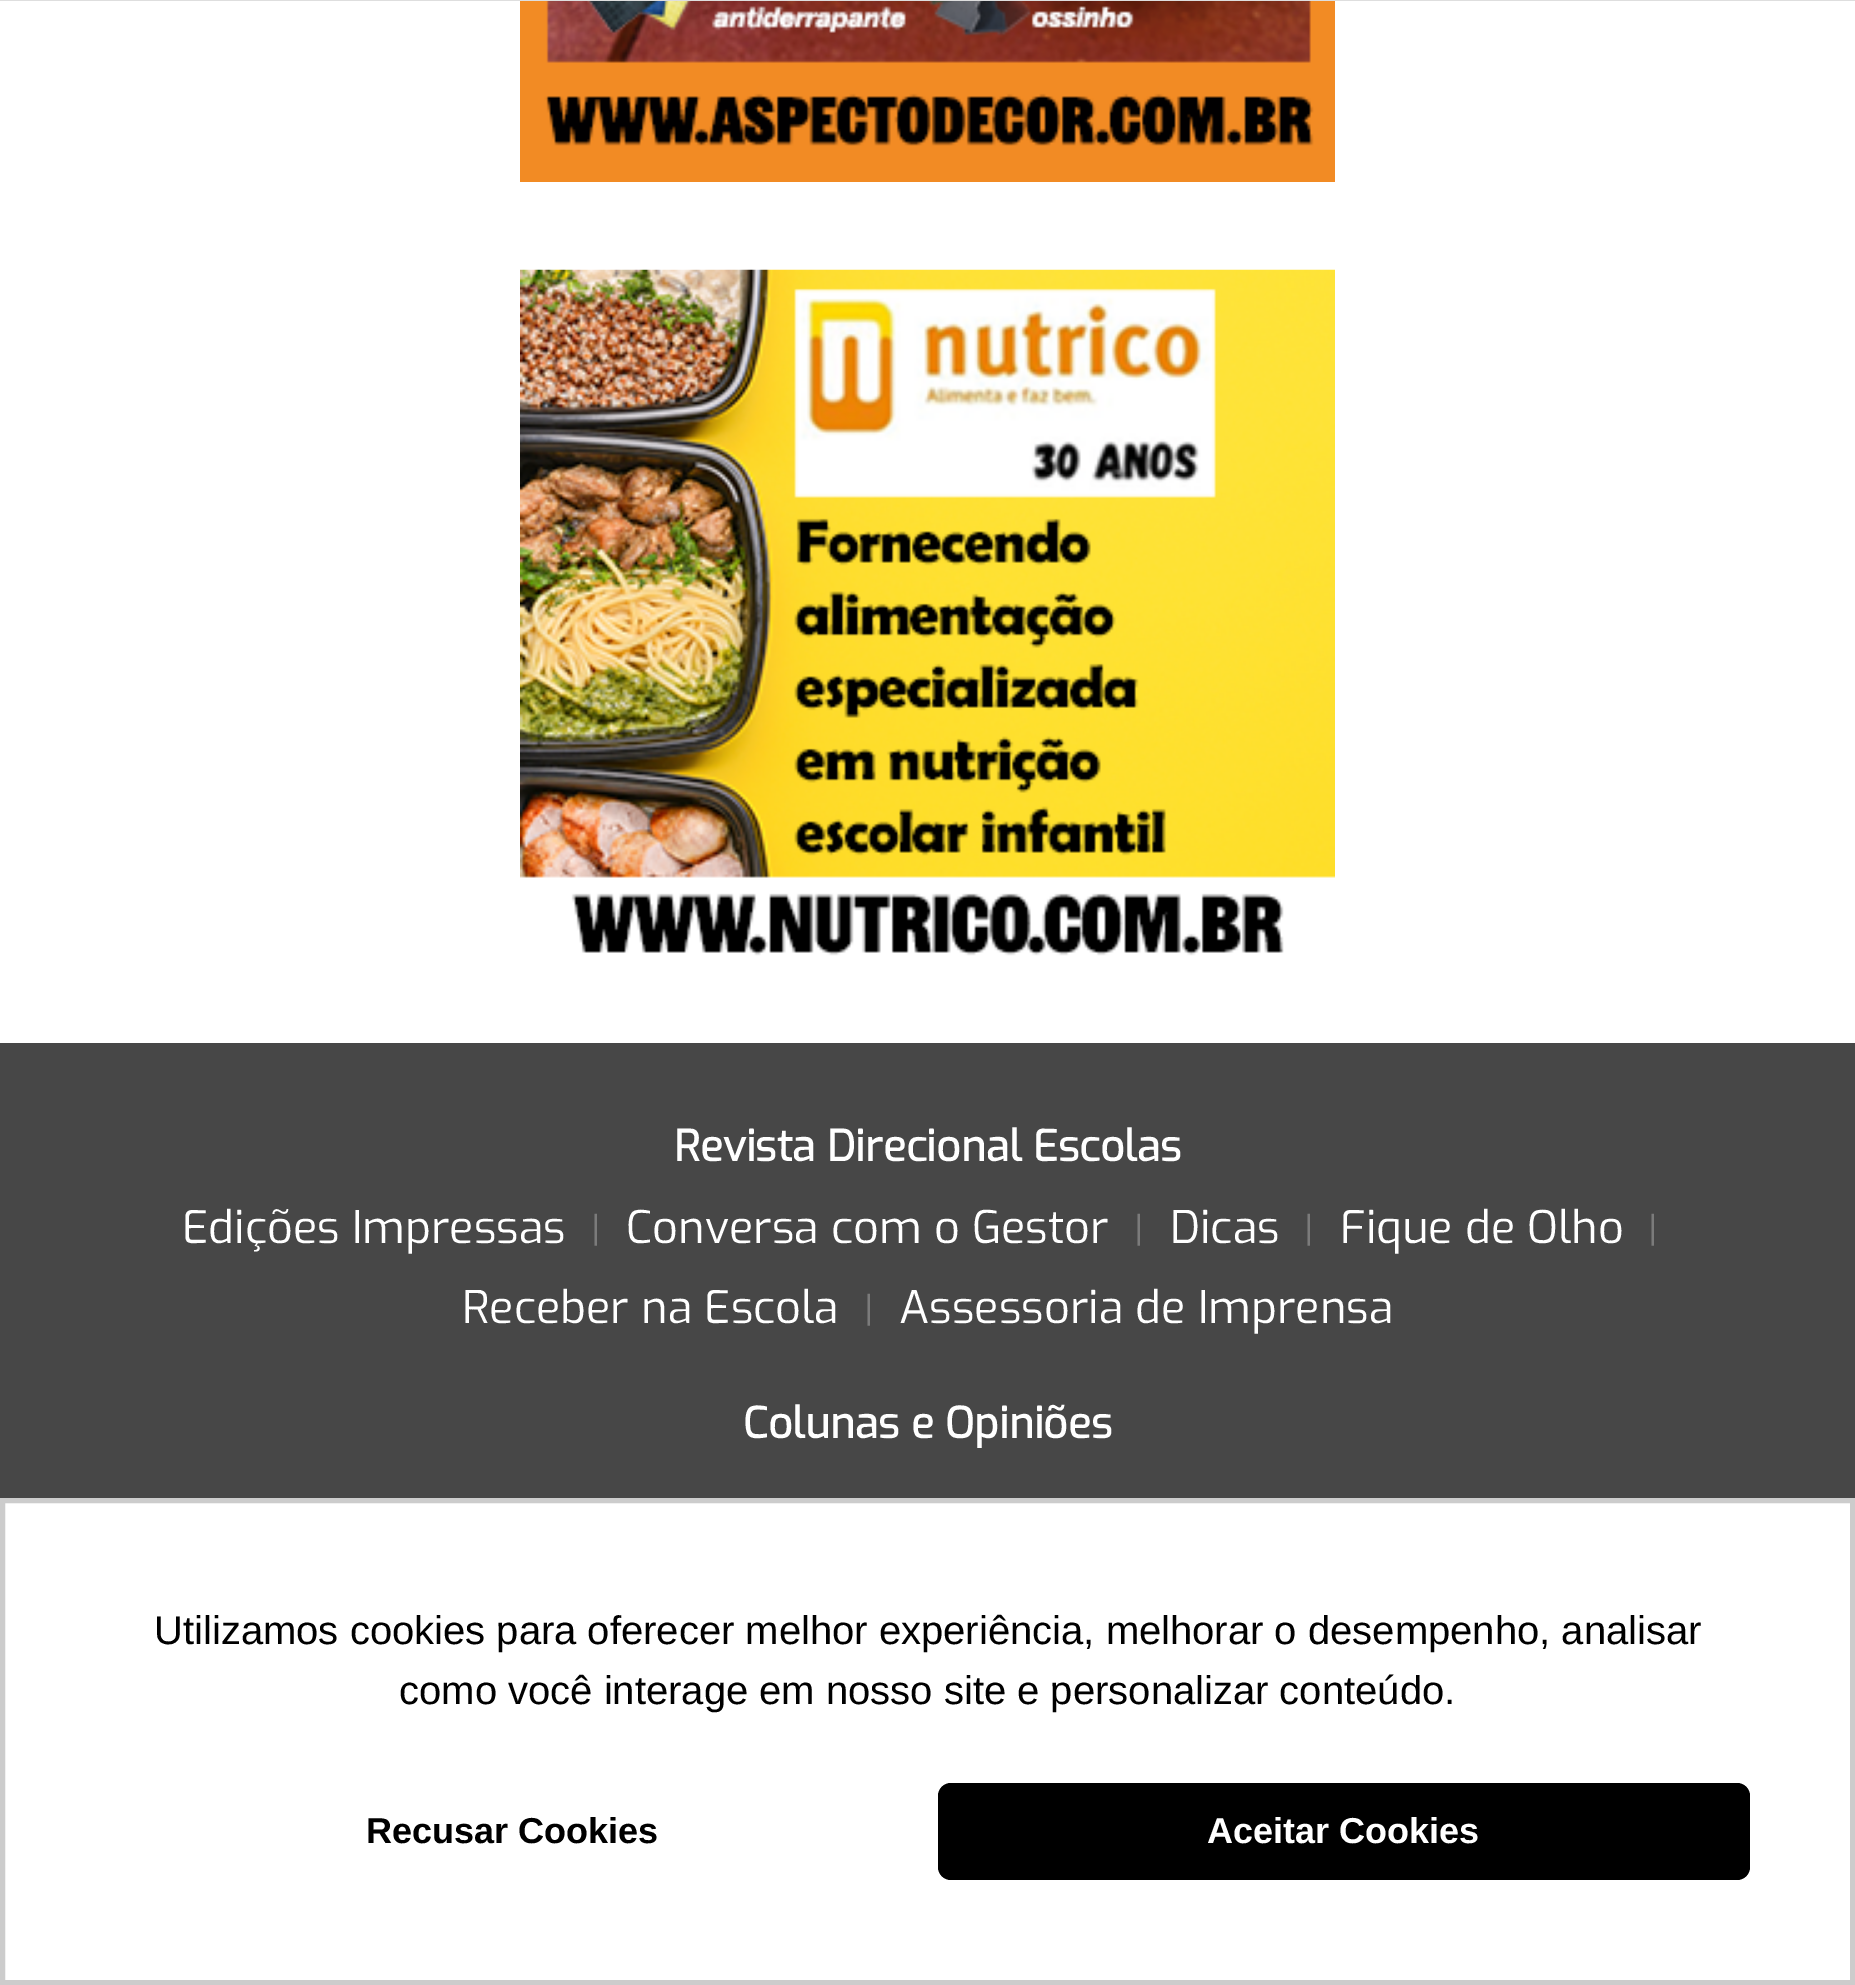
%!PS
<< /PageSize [1855 1985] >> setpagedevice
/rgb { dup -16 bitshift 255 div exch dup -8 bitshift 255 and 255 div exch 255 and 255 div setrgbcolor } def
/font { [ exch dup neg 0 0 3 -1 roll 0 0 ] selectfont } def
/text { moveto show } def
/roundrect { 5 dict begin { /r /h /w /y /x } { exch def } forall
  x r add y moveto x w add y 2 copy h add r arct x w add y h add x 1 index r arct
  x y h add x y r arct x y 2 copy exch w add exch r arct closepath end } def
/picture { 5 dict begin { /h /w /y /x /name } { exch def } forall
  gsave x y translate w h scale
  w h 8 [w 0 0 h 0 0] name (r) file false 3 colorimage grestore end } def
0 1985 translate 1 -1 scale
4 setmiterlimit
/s1 { /Exo-Bold 42.5 font 16#FFFFFF rgb } def
/s2 { /Exo-Regular 45 font 16#FFFFFF rgb } def
/s3 { /Exo-Regular 38 font 16#7B7B7B rgb } def
/s4 { /LiberationSans-Regular 40 font 16#000000 rgb } def
/s5 { /LiberationSans-Bold 36 font 16#000000 rgb } def
/s6 { /LiberationSans-Bold 36 font 16#FFFFFF rgb } def
16#FFFFFF rgb
0 0 1855 1985 rectfill
16#DEDEDE rgb
0 0 1855 1 rectfill
(pic1.raw) 520 1 815 181 picture
(pic2.raw) 520 269 815 687 picture
16#474747 rgb
0 1043 1855 455 rectfill
s1
(Revista Direcional Escolas) 674 1161 text
s2
(Edições Impressas) 182 1243 text
s3
(|) 591 1243 text
s2
(Conversa com o Gestor) 626 1243 text
s3
(|) 1134 1243 text
s2
(Dicas) 1170 1243 text
s3
(|) 1304 1243 text
s2
(Fique de Olho) 1340 1243 text
s3
(|) 1648 1243 text
s2
(Receber na Escola) 462 1323 text
s3
(|) 864 1323 text
s2
(Assessoria de Imprensa) 899 1323 text
s1
(Colunas e Opiniões) 743 1438 text
16#CCCCCC rgb
5 setlinewidth
2.5 1500.5 1850 482 rectstroke
s4
(Utilizamos cookies para oferecer melhor experiência, melhorar o desempenho, analisar) 154 1644 text
(como você interage em nosso site e personalizar conteúdo.) 399 1704 text
s5
(Recusar Cookies) 366 1843 text
938 1783 812 97 13 roundrect fill
s6
(Aceitar Cookies) 1207 1843 text
showpage
